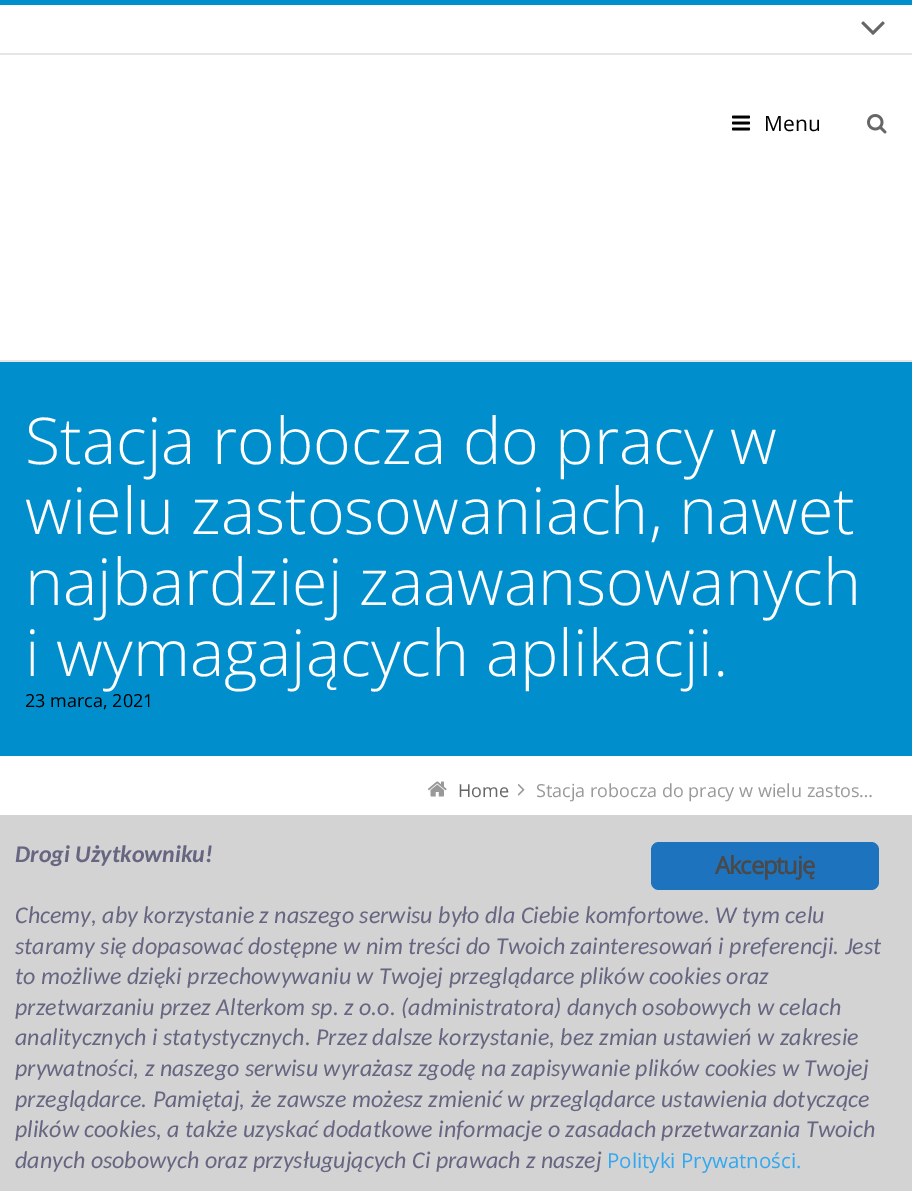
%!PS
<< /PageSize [912 1191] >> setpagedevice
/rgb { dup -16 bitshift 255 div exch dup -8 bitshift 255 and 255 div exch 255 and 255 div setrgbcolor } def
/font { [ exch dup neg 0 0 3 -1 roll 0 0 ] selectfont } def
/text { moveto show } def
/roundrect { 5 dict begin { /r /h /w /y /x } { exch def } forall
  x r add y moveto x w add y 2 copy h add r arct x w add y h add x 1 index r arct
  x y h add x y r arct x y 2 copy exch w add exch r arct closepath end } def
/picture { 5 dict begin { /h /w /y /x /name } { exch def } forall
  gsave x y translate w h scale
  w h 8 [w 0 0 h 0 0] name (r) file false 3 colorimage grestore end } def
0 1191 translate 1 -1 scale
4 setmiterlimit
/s1 { /OpenSans-Regular 21 font 16#000000 rgb } def
/s2 { /OpenSans-Light 64.5 font 16#FFFFFF rgb } def
/s3 { /OpenSans-Regular 18 font 16#000000 rgb } def
/s4 { /OpenSans-Regular 18 font 16#666666 rgb } def
/s5 { /OpenSans-Regular 18 font 16#999999 rgb } def
/s6 { /Carlito-BoldItalic 24 font 16#666682 rgb } def
/s7 { /Carlito-Italic 24 font 16#666682 rgb } def
/s8 { /OpenSans-Regular 20.5 font 16#31A8F0 rgb } def
16#FFFFFF rgb
0 0 912 1191 rectfill
16#008ECC rgb
0 0 912 5 rectfill
16#E6E6E6 rgb
0 53 912 2 rectfill
(pic1.raw) 861 21 24 14 picture
(pic2.raw) 732 115 18 16 picture
s1
(Menu) 764 131 text
(pic3.raw) 867 114 20 20 picture
16#E6E6E6 rgb
0 360 912 2 rectfill
16#008ECC rgb
0 362 912 394 rectfill
s2
(Stacja robocza do pracy w) 25 464 text
(wielu zastosowaniach, nawet) 25 534 text
(najbardziej zaawansowanych) 25 605 text
(i wymagających aplikacji.) 25 676 text
s3
(23 marca, 2021) 25 707 text
(pic4.raw) 428 781 19 16 picture
s4
(Home) 458 797 text
(pic5.raw) 518 784 7 12 picture
s5
(Stacja robocza do pracy w wielu zastos…) 536 797 text
16#D3D3D3 rgb
0 815 912 376 rectfill
s6
(Drogi Użytkowniku!) 15 862 text
s7
(Chcemy, aby korzystanie z naszego serwisu było dla Ciebie komfortowe. W tym celu) 15 923 text
(staramy się dopasować dostępne w nim treści do Twoich zainteresowań i preferencji. Jest) 15 954 text
(to możliwe dzięki przechowywaniu w Twojej przeglądarce plików cookies oraz) 15 984 text
(przetwarzaniu przez Alterkom sp. z o.o. \(administratora\) danych osobowych w celach) 15 1015 text
(analitycznych i statystycznych. Przez dalsze korzystanie, bez zmian ustawień w zakresie) 15 1045 text
(prywatności, z naszego serwisu wyrażasz zgodę na zapisywanie plików cookies w Twojej) 15 1076 text
(przeglądarce. Pamiętaj, że zawsze możesz zmienić w przeglądarce ustawienia dotyczące) 15 1107 text
(plików cookies, a także uzyskać dodatkowe informacje o zasadach przetwarzania Twoich) 15 1137 text
(danych osobowych oraz przysługujących Ci prawach z naszej) 15 1168 text
s8
(Polityki Prywatności.) 607 1168 text
16#1E73BE rgb
651 842 228 48 8 roundrect fill
/OpenSans-Bold 24 font
16#494949 rgb
715 874 moveto -1.25 0 (Akceptuję) ashow
showpage
